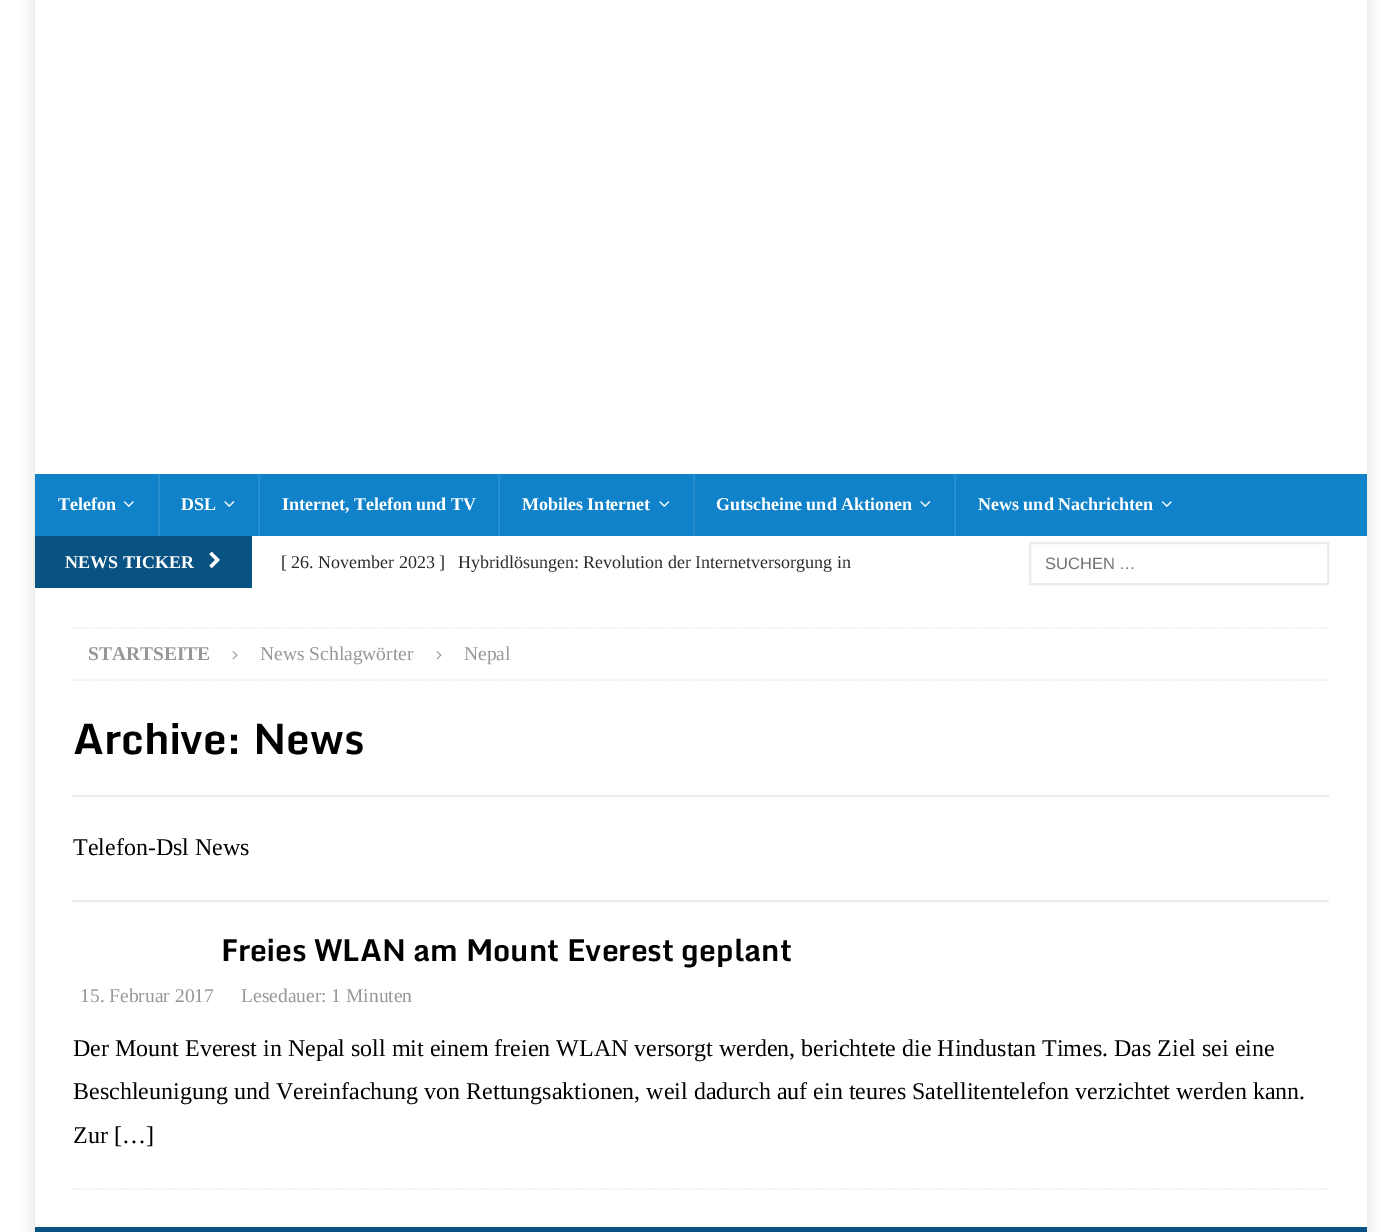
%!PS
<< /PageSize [1400 1232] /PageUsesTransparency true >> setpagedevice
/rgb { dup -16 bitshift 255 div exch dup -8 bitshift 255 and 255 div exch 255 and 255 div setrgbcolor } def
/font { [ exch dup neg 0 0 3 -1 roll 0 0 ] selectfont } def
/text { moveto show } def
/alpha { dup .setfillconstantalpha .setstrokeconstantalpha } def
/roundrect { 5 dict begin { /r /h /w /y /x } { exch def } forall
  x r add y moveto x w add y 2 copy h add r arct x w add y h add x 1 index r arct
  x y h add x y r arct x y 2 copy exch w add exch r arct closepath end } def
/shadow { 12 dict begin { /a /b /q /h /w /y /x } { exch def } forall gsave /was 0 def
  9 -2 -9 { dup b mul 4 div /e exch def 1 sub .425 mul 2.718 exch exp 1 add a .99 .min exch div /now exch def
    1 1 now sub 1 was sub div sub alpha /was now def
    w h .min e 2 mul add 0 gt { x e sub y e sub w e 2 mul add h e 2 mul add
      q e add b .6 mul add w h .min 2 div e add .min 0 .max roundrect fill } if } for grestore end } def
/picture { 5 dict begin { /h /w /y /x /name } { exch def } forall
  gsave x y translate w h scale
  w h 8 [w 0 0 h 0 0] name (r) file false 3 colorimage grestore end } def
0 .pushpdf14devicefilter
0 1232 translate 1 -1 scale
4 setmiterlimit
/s1 { /LiberationSerif-Bold 18 font 16#FFFFFF rgb } def
/s2 { /LiberationSerif-Regular 18 font 16#2A2A2A rgb } def
/s3 { /LiberationSans-Regular 16.5 font 16#757575 rgb } def
/s4 { /LiberationSerif-Bold 19.5 font 16#979797 rgb } def
/s5 { /LiberationSerif-Regular 19.5 font 16#979797 rgb } def
/s6 { /Monda-Bold 42 font 16#000000 rgb } def
/s7 { /LiberationSerif-Regular 24 font 16#000000 rgb } def
/s8 { /Monda-Bold 30 font 16#000000 rgb } def
16#FFFFFF rgb
0 0 1400 1232 rectfill
16#323232 rgb
35 -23 1332 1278 0 7.5 0.17 shadow
16#FFFFFF rgb
35 0 1332 474 rectfill
16#1082C9 rgb
35 474 1332 62 rectfill
s1
(Telefon) 58 510 text
(pic1.raw) 123 501 11 6 picture
16#288FCE rgb
158 474 2 62 rectfill
s1
(DSL) 181 510 text
(pic2.raw) 224 501 11 6 picture
16#288FCE rgb
258 474 2 62 rectfill
s1
(Internet, Telefon und TV) 282 510 text
16#288FCE rgb
498 474 2 62 rectfill
s1
(Mobiles Internet) 522 510 text
(pic2.raw) 659 501 11 6 picture
16#288FCE rgb
693 474 2 62 rectfill
s1
(Gutscheine und Aktionen) 716 510 text
(pic2.raw) 920 501 11 6 picture
16#288FCE rgb
954 474 2 62 rectfill
s1
(News und Nachrichten) 978 510 text
(pic1.raw) 1161 501 11 6 picture
35 536 1332 691 rectfill
16#085383 rgb
35 536 217 52 rectfill
s1
(NEWS TICKER) 65 568 text
(pic3.raw) 209 551 11 17 picture
s2
([ 26. November 2023 ]) 281 568 text
(Hybridlösungen: Revolution der Internetversorgung in) 458 568 text
16#EBEBEB rgb
2 setlinewidth
1030 543 298 41 rectstroke
s3
(SUCHEN …) 1045 569 text
16#EBEBEB rgb
1.5 setlinewidth
[1.5 1.5] 0 setdash
72 628 moveto 1329 628 lineto stroke
72 680 moveto 1329 680 lineto stroke
s4
(STARTSEITE) 88 660 text
(pic4.raw) 232 651 6 9 picture
s5
(News Schlagwörter) 260 660 text
(pic4.raw) 436 651 6 9 picture
(Nepal) 464 660 text
s6
(Archive: News) 73 754 text
16#EBEBEB rgb
72 795 1257 2 rectfill
72 900 1257 2 rectfill
s7
(Telefon-Dsl News) 73 855 text
16#EBEBEB rgb
72 1189 moveto 1329 1189 lineto stroke
s8
(Freies WLAN am Mount Everest geplant) 221 961 text
s5
(15. Februar 2017) 80 1002 text
(Lesedauer: 1 Minuten) 241 1002 text
s7
(Der Mount Everest in Nepal soll mit einem freien WLAN versorgt werden, berichtete die Hindustan Times. Das Ziel sei eine) 73 1056 text
(Beschleunigung und Vereinfachung von Rettungsaktionen, weil dadurch auf ein teures Satellitentelefon verzichtet werden kann.) 73 1099 text
(Zur […]) 73 1143 text
16#085383 rgb
35 1227 1332 5 rectfill
.poppdf14devicefilter showpage
